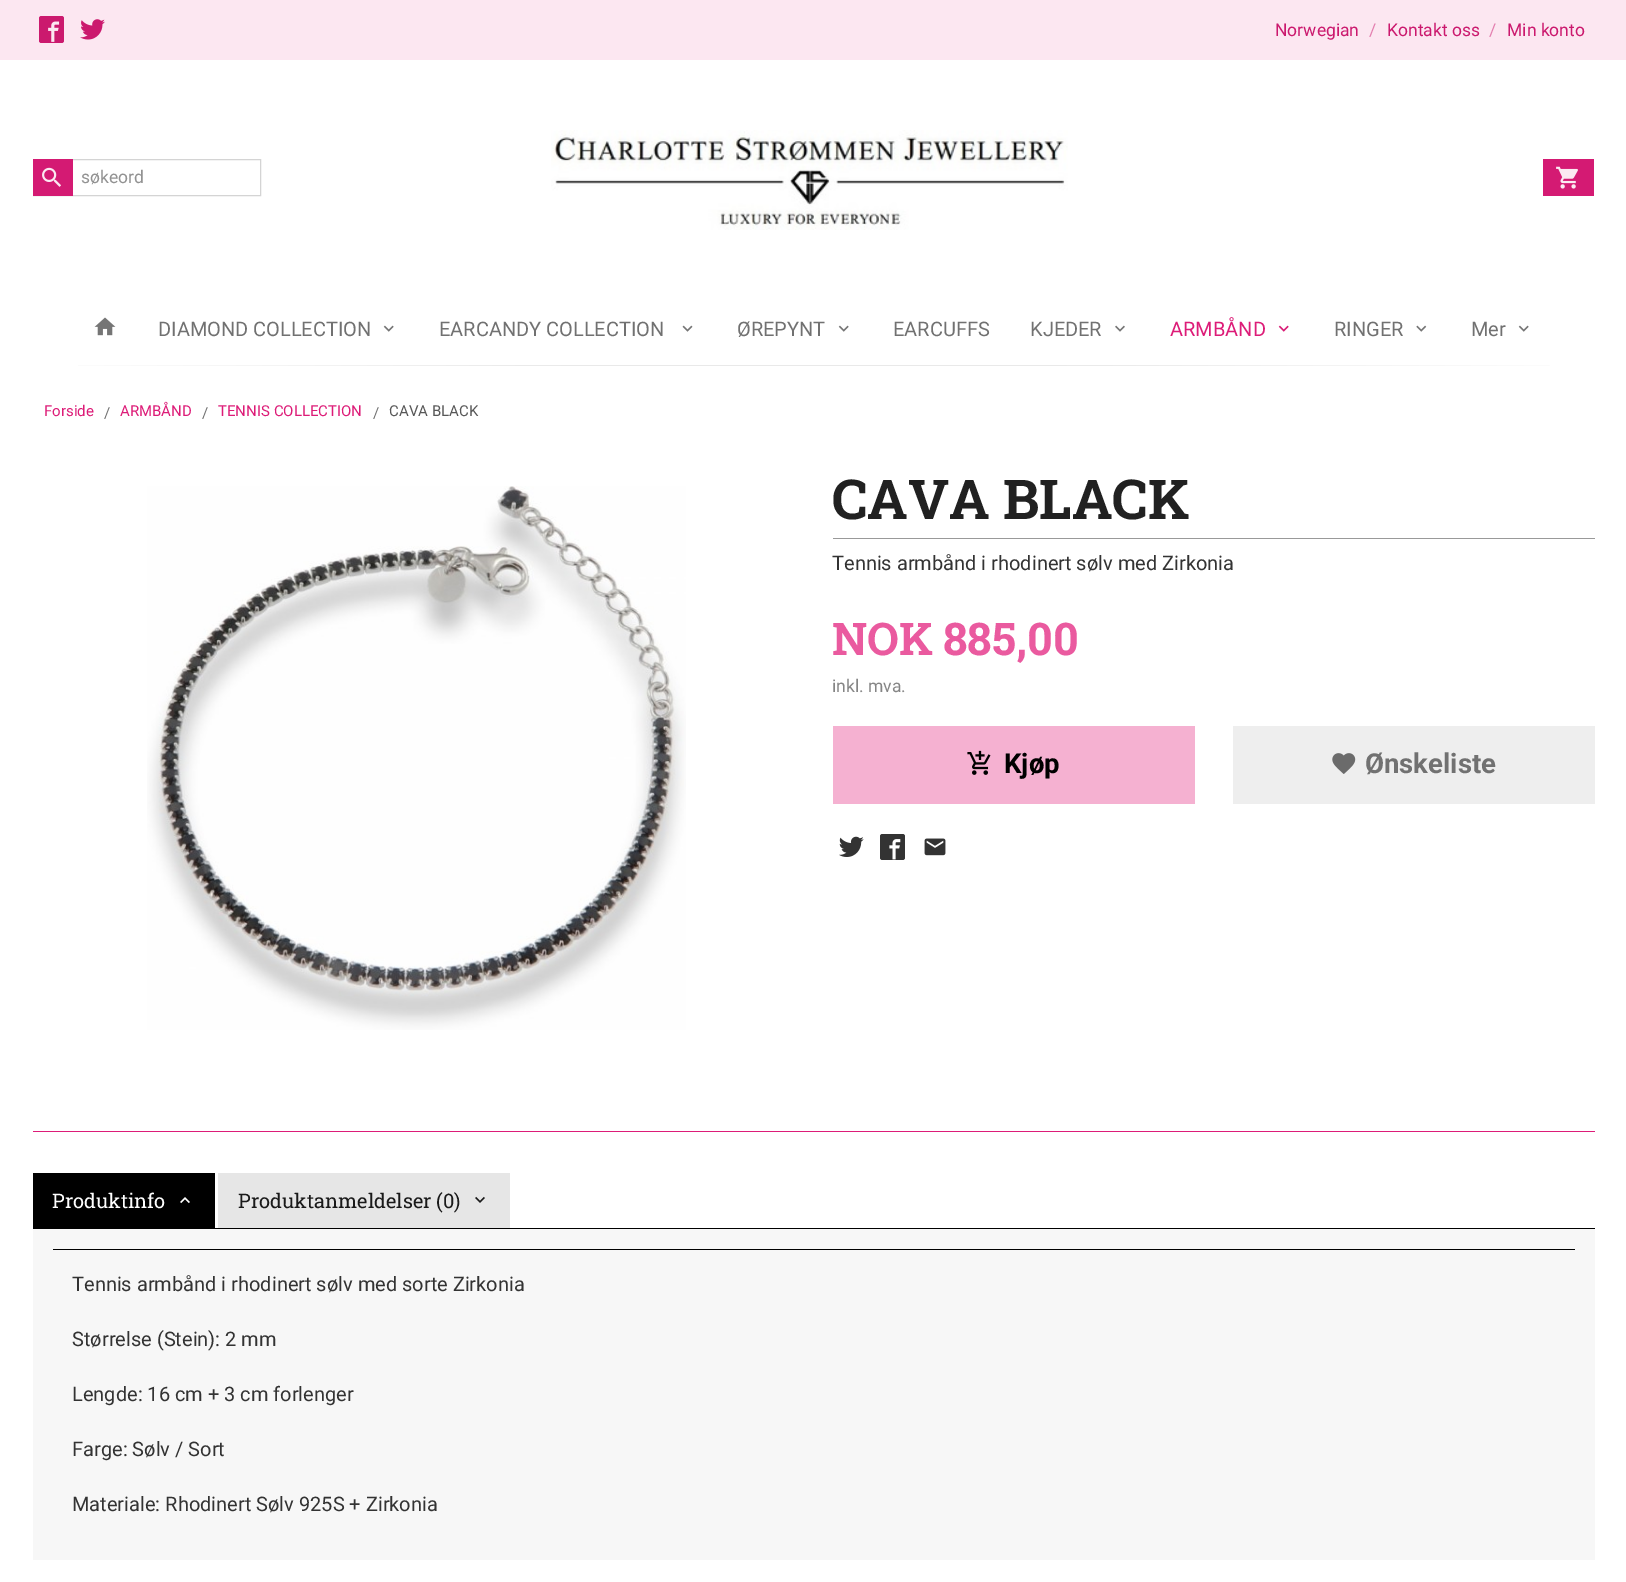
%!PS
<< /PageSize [1626 1582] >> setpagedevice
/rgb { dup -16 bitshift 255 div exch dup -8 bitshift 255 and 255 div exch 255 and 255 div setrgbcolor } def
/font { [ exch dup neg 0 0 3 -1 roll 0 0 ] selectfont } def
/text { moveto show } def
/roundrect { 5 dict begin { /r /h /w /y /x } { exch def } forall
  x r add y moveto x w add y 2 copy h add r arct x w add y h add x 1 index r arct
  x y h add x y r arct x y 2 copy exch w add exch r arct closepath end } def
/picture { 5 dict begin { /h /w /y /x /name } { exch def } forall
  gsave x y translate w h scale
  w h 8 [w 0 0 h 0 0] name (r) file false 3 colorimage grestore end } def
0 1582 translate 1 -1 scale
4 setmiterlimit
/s1 { /Roboto-Regular 17.5 font 16#CB196E rgb } def
/s2 { /Roboto-Regular 17.5 font 16#E480B0 rgb } def
/s3 { /Roboto-Regular 17.5 font 16#929292 rgb } def
/s4 { /Roboto-Regular 20 font 16#717171 rgb } def
/s5 { /Roboto-Regular 20 font 16#DD1C78 rgb } def
/s6 { /Roboto-Regular 15 font 16#DD1C78 rgb } def
/s7 { /Roboto-Regular 15 font 16#717171 rgb } def
/s8 { /Roboto-Regular 15 font 16#585858 rgb } def
/s9 { /RobotoSlab-Bold 55 font 16#212121 rgb } def
/s10 { /Roboto-Regular 20 font 16#333333 rgb } def
/s11 { /RobotoSlab-Bold 45 font 16#EA5A9F rgb } def
/s12 { /Roboto-Regular 17.5 font 16#858585 rgb } def
/s13 { /Roboto-Bold 27.5 font 16#000000 rgb } def
/s14 { /Roboto-Bold 27.5 font 16#717171 rgb } def
/s15 { /RobotoSlab-Regular 20 font 16#FFFFFF rgb } def
/s16 { /RobotoSlab-Regular 20 font 16#1A1A1A rgb } def
16#FCE7F1 rgb
0 0 1626 1582 rectfill
16#CB196E rgb
39 16 25 27 2.5 roundrect fill
(pic1.raw) 48 21 12 21 picture
(pic2.raw) 80 19 25 21 picture
s1
(Norwegian) 1275 36 text
s2
(/) 1369 36 text
s1
(Kontakt oss) 1387 36 text
s2
(/) 1489 36 text
s1
(Min konto) 1507 36 text
16#FFFFFF rgb
0 60 1626 1522 rectfill
16#D4D4D4 rgb
33.5 159.5 227 36 rectstroke
16#D41A73 rgb
33 159 40 37 rectfill
(pic3.raw) 42 167 19 20 picture
s3
(søkeord) 81 183 text
(pic4.raw) 551 130 517 100 picture
16#D41A73 rgb
1543 159 51 37 rectfill
(pic5.raw) 1556 166 22 23 picture
(pic6.raw) 94 317 22 19 picture
s4
(DIAMOND COLLECTION) 158 336 text
(pic7.raw) 383 325 11 7 picture
(EARCANDY COLLECTION) 439 336 text
(pic8.raw) 682 325 11 7 picture
(ØREPYNT) 737 336 text
(pic7.raw) 838 325 11 7 picture
(EARCUFFS) 893 336 text
(KJEDER) 1030 336 text
(pic9.raw) 1115 325 10 7 picture
s5
(ARMBÅND) 1170 336 text
(pic10.raw) 1278 325 11 7 picture
s4
(RINGER) 1334 336 text
(pic11.raw) 1416 325 11 7 picture
(Mer) 1471 336 text
(pic7.raw) 1518 325 11 7 picture
gsave 78 365 moveto 1550 365 lineto 1550 366 lineto 78 366 lineto closepath clip newpath
<< /ShadingType 2 /ColorSpace /DeviceRGB /Coords [14 366 1614 366] /Extend [true true] /Function << /FunctionType 3 /Domain [0 1] /Functions [<< /FunctionType 2 /Domain [0 1] /C0 [1 1 1] /C1 [0.914 0.914 0.914] /N 1 >> << /FunctionType 2 /Domain [0 1] /C0 [0.914 0.914 0.914] /C1 [0.914 0.914 0.914] /N 1 >> << /FunctionType 2 /Domain [0 1] /C0 [0.914 0.914 0.914] /C1 [1 1 1] /N 1 >>] /Bounds [0.35 0.65] /Encode [0 1 0 1 0 1] >> >> shfill grestore
s6
(Forside) 44 416 text
s7
(/) 104 418 text
s6
(ARMBÅND) 120 416 text
s7
(/) 202 418 text
s6
(TENNIS COLLECTION) 218 416 text
s7
(/) 373 418 text
s8
(CAVA BLACK) 389 416 text
(pic12.raw) 147 486 539 544 picture
16#999999 rgb
833 538 762 1 rectfill
s9
(CAVA BLACK) 832 519 text
s10
(Tennis armbånd i rhodinert sølv med Zirkonia) 832 570 text
s11
(NOK) 832 655 text
(885,00) 943 655 text
s12
(inkl. mva.) 832 692 text
16#F5B1D1 rgb
833 726 362 78 rectfill
(pic13.raw) 967 750 24 25 picture
s13
(Kjøp) 1004 773 text
16#EEEEEE rgb
1233 726 362 78 rectfill
(pic14.raw) 1332 753 24 21 picture
s14
(Ønskeliste) 1365 773 text
(pic15.raw) 839 836 25 21 picture
16#333333 rgb
880 834 25 26 2.5 roundrect fill
(pic16.raw) 889 839 12 21 picture
(pic17.raw) 924 838 22 18 picture
16#DD1C78 rgb
33 1131 1562 1 rectfill
16#000000 rgb
33 1173 182 55 rectfill
s15
(Produktinfo) 52 1208 text
(pic18.raw) 180 1197 10 7 picture
16#E6E6E6 rgb
218 1173 292 55 rectfill
s16
(Produktanmeldelser \(0\)) 238 1208 text
(pic19.raw) 475 1196 10 7 picture
16#F7F7F7 rgb
33 1229 1562 331 rectfill
16#000000 rgb
33 1228 1562 1 rectfill
53 1249 1522 1 rectfill
s10
(Tennis armbånd i rhodinert sølv med sorte Zirkonia) 72 1291 text
(Størrelse \(Stein\): 2 mm) 72 1346 text
(Lengde: 16 cm + 3 cm forlenger) 72 1401 text
(Farge: Sølv / Sort) 72 1456 text
(Materiale: Rhodinert Sølv 925S + Zirkonia) 72 1511 text
showpage
